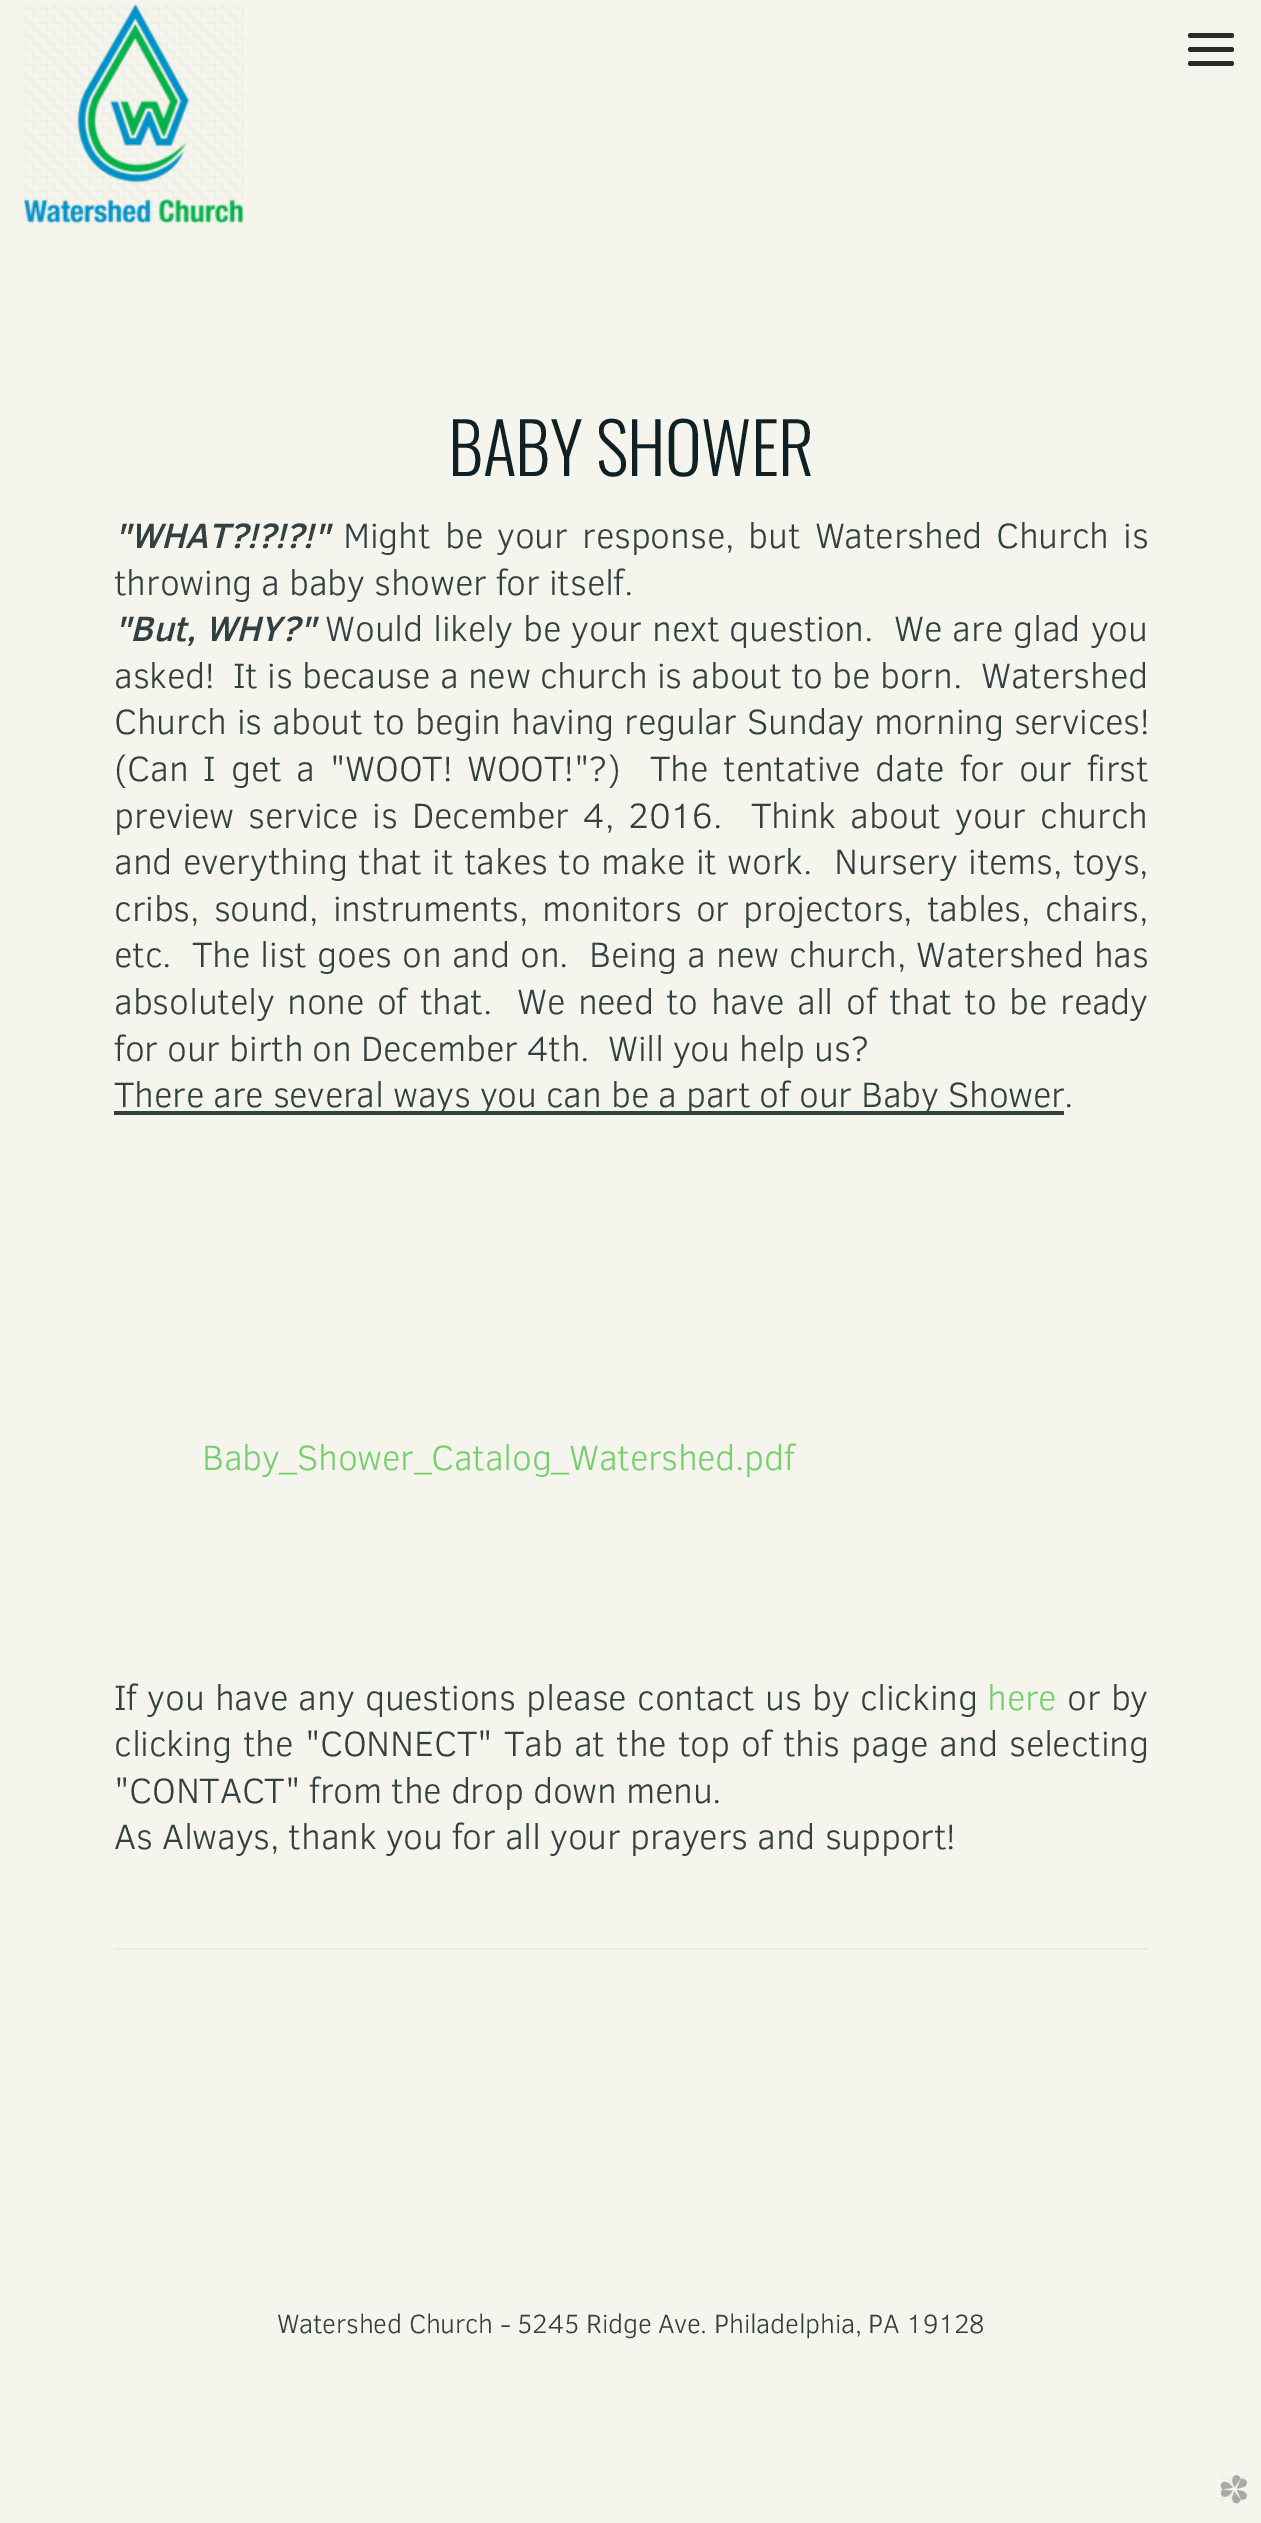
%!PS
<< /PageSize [1261 2523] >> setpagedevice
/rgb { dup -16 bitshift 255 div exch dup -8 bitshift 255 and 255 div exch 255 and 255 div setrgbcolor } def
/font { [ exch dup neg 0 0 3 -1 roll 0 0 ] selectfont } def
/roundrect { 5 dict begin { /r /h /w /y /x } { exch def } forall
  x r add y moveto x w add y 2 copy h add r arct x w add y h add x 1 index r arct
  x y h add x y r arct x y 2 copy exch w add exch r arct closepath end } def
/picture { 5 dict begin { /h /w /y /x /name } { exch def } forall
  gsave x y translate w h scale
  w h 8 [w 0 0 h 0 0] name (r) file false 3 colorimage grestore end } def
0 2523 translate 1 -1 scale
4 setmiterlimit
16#F5F5ED rgb
0 0 1261 2523 rectfill
16#2A2A2A rgb
1188 33 46 5 2.5 roundrect fill
1188 47 46 5 2.5 roundrect fill
1188 61 46 5 2.5 roundrect fill
(pic1.raw) 23 4 221 220 picture
/Oswald-Light 70.25 font
16#102024 rgb
448 476 moveto -0.75 0 (BABY SHOWER) ashow
/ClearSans-MediumItalic 35.85 font
16#324042 rgb
114 548 moveto -0.27 0 ("WHAT?!?!?!") ashow
/ClearSans-Light 35.85 font
343 548 moveto 5.25 0 32 -0.27 0 (Might be your response, but Watershed Church is) awidthshow
114 595 moveto -0.27 0 (throwing a baby shower for itself.) ashow
/ClearSans-MediumItalic 35.85 font
114 641 moveto 1 0 32 -0.27 0 ("But, WHY?") awidthshow
/ClearSans-Light 35.85 font
325 641 moveto 1.25 0 32 -0.27 0 (Would likely be your next question.  We are glad you) awidthshow
114 688 moveto 0.25 0 32 -0.27 0 (asked!  It is because a new church is about to be born.  Watershed) awidthshow
114 734 moveto 1 0 32 -0.27 0 (Church is about to begin having regular Sunday morning services!) awidthshow
114 781 moveto 6 0 32 -0.27 0 (\(Can I get a "WOOT! WOOT!"?\)) awidthshow
650 781 moveto 6 0 32 -0.27 0 (The tentative date for our first) awidthshow
114 828 moveto 5.25 0 32 -0.27 0 (preview service is December 4, 2016.  Think about your church) awidthshow
114 874 moveto 1.75 0 32 -0.27 0 (and everything that it takes to make it work.  Nursery items, toys,) awidthshow
114 921 moveto 5 0 32 -0.27 0 (cribs, sound, instruments, monitors or projectors, tables, chairs,) awidthshow
114 967 moveto 1.2 0 32 -0.27 0 (etc.  The list goes on and on.  Being a new church, Watershed has) awidthshow
114 1014 moveto 3.5 0 32 -0.27 0 (absolutely none of that.  We need to have all of that to be ready) awidthshow
114 1061 moveto -0.27 0 (for our birth on December 4th.  Will you help us?) ashow
114 1111 950 4 rectfill
114 1107 moveto -0.27 0 (There are several ways you can be a part of our Baby Shower) ashow
1064 1107 moveto -0.27 0 (.) ashow
16#76CF6C rgb
202 1470 moveto -0.35 0 (Baby_Shower_Catalog_Watershed.pdf) ashow
16#324042 rgb
114 1710 moveto 1.25 0 32 -0.27 0 (If you have any questions please contact us by clicking) awidthshow
16#76CF6C rgb
987 1710 moveto -0.27 0 (here) ashow
16#324042 rgb
1067 1710 moveto 1 0 32 -0.27 0 (or by) awidthshow
114 1756 moveto 2.25 0 32 -0.27 0 (clicking the "CONNECT" Tab at the top of this page and selecting) awidthshow
114 1803 moveto -0.27 0 ("CONTACT" from the drop down menu.) ashow
114 1849 moveto -0.27 0 (As Always, thank you for all your prayers and support!) ashow
16#EBEBE4 rgb
114 1948 1034 2 rectfill
/ClearSans-Light 26.9 font
16#324042 rgb
277 2333 moveto -0.27 0 (Watershed Church - 5245 Ridge Ave. Philadelphia, PA 19128) ashow
(pic2.raw) 1220 2475 27 29 picture
showpage
